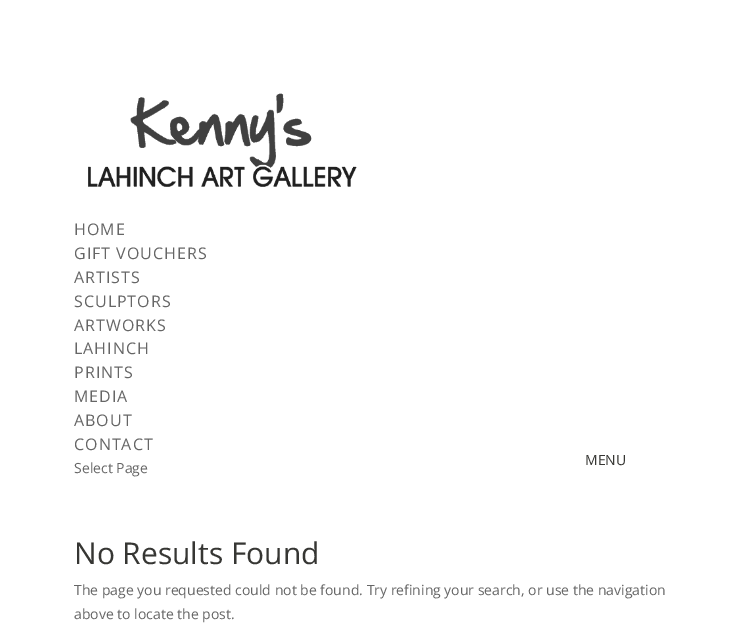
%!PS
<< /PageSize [740 639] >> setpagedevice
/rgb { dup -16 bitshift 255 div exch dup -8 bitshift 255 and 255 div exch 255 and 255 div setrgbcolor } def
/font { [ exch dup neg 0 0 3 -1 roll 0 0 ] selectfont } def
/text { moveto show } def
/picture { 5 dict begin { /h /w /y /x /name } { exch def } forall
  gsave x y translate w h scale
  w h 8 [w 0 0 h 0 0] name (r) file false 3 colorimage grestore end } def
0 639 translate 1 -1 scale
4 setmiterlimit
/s1 { /OpenSans-Regular 14 font 16#363633 rgb } def
/s2 { /OpenSans-Regular 14 font 16#666666 rgb } def
/s3 { /OpenSans-Regular 30 font 16#363633 rgb } def
16#FFFFFF rgb
0 0 740 639 rectfill
(pic1.raw) 88 93 269 94 picture
/OpenSans-Regular 16 font
16#666666 rgb
74 235 moveto 1 0 (HOME) ashow
74 259 moveto 1 0 (GIFT VOUCHERS) ashow
74 283 moveto 1 0 (ARTISTS) ashow
74 307 moveto 1 0 (SCULPTORS) ashow
74 331 moveto 1 0 (ARTWORKS) ashow
74 354 moveto 1 0 (LAHINCH) ashow
74 378 moveto 1 0 (PRINTS) ashow
74 402 moveto 1 0 (MEDIA) ashow
74 426 moveto 1 0 (ABOUT) ashow
74 450 moveto 1 0 (CONTACT) ashow
s1
(MENU) 585 465 text
s2
(Select Page) 74 473 text
s3
(No Results Found) 74 564 text
s2
(The page you requested could not be found. Try refining your search, or use the navigation) 74 595 text
(above to locate the post.) 74 619 text
showpage
